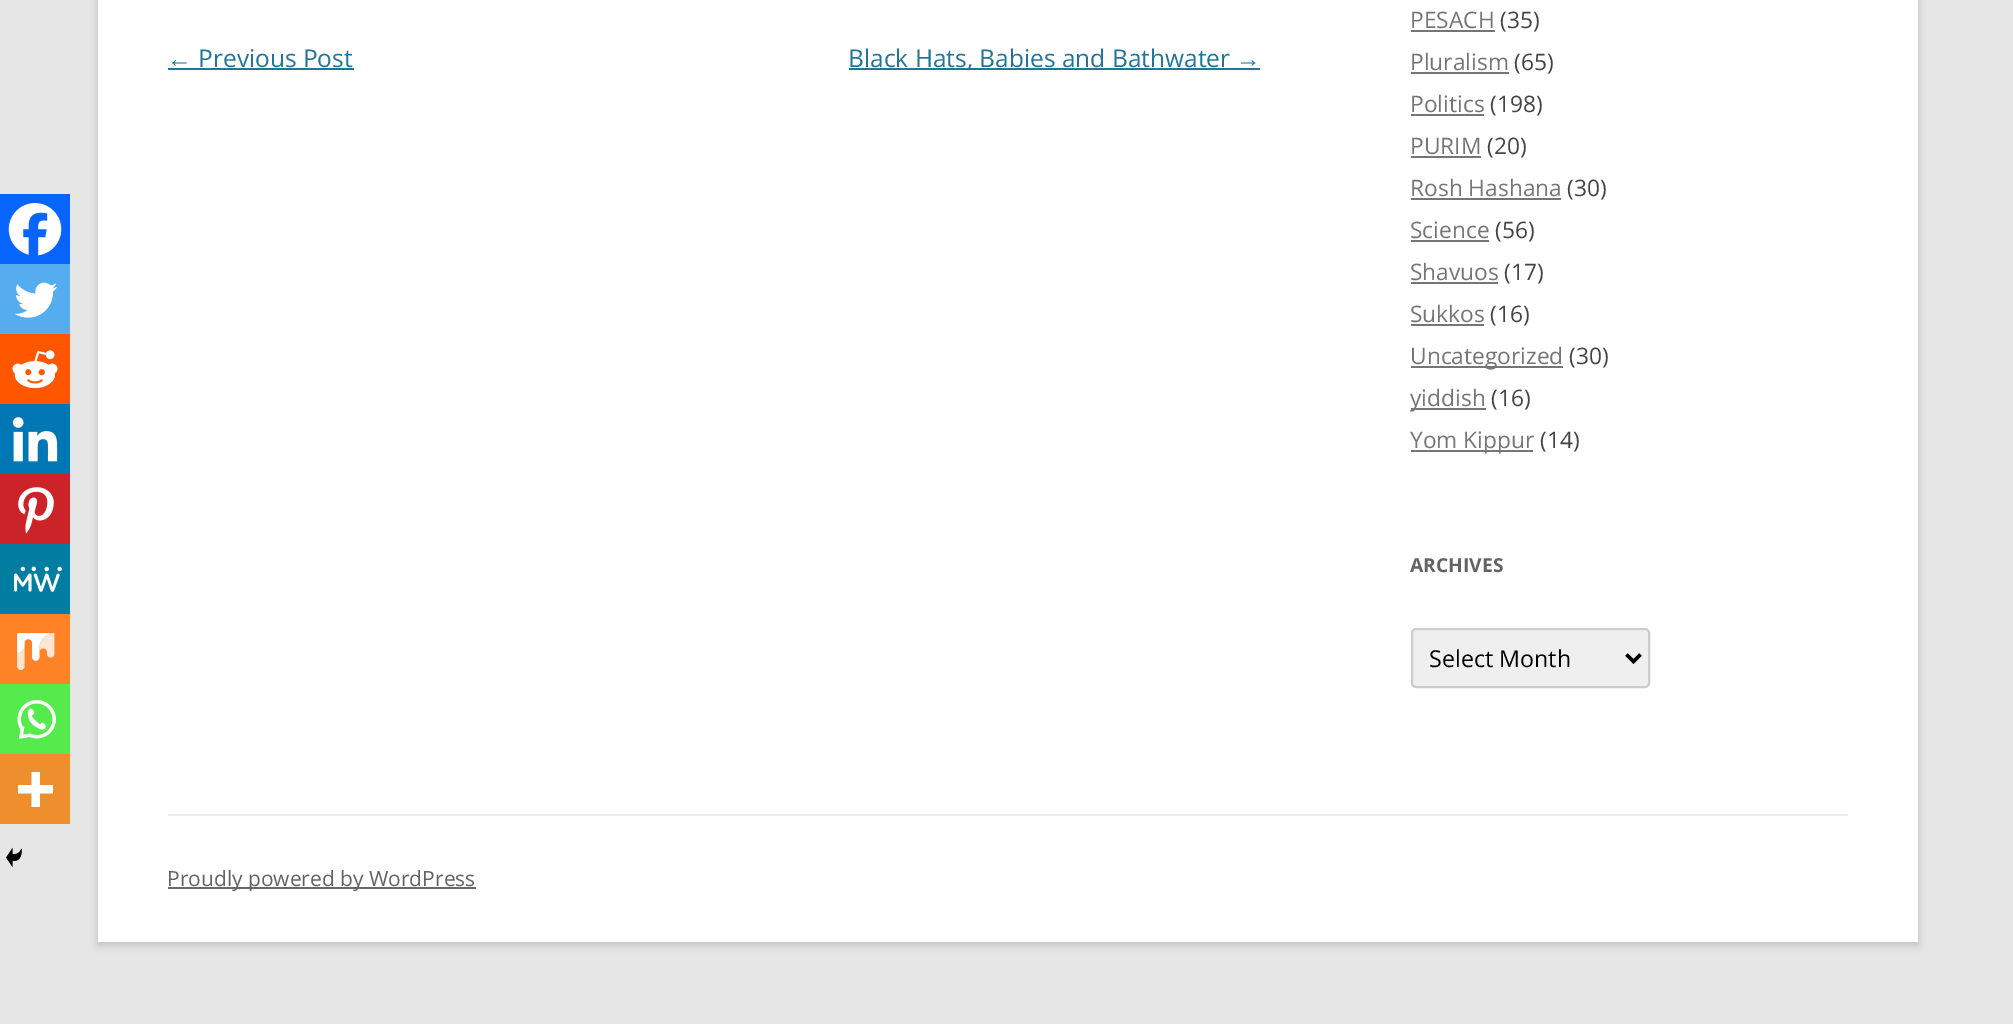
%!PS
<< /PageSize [2013 1024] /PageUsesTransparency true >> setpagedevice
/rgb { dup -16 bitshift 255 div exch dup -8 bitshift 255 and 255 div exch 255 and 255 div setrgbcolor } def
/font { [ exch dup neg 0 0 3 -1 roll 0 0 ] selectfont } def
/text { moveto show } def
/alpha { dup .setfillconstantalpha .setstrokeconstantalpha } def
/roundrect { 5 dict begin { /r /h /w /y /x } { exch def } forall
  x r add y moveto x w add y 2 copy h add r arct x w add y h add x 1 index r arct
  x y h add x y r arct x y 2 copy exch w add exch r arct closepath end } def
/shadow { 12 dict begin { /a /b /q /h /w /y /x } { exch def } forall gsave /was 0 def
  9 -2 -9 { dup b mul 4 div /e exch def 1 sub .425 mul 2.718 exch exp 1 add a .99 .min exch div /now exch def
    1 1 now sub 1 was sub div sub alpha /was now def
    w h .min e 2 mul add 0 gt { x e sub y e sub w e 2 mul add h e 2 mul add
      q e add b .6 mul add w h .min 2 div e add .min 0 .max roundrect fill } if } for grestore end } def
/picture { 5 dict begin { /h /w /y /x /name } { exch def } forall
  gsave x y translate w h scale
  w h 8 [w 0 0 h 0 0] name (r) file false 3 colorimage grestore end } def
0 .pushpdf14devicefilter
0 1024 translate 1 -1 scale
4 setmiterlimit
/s1 { /LiberationSans-Regular 24.5 font 16#21759B rgb } def
/s2 { /OpenSans-Regular 24.5 font 16#21759B rgb } def
/s3 { /OpenSans-Regular 22.75 font 16#757575 rgb } def
/s4 { /OpenSans-Regular 22.75 font 16#444444 rgb } def
/s5 { /OpenSans-Bold 19.25 font 16#636363 rgb } def
/s6 { /OpenSans-Regular 23.25 font 16#000000 rgb } def
/s7 { /OpenSans-Regular 21 font 16#636363 rgb } def
16#E6E6E6 rgb
0 0 2013 1024 rectfill
16#646464 rgb
98 -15 1820 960 0 5 0.3 shadow
16#FFFFFF rgb
98 0 1820 942 rectfill
s1
(←) 167 67 text
168 68 186 2 rectfill
s2
(Previous Post) 198 67 text
849 68 411 2 rectfill
(Black Hats, Babies and Bathwater) 848 67 text
s1
(→) 1236 67 text
16#0765FE rgb
0 194 70 70 rectfill
(pic1.raw) 8 203 54 53 picture
16#55ACEE rgb
0 264 70 70 rectfill
(pic2.raw) 14 282 44 36 picture
16#FF5700 rgb
0 334 70 70 rectfill
(pic3.raw) 12 350 46 39 picture
16#0077B5 rgb
0 404 70 70 rectfill
(pic4.raw) 12 417 46 45 picture
16#CC2329 rgb
0 474 70 70 rectfill
(pic5.raw) 18 487 36 47 picture
16#007DA1 rgb
0 544 70 70 rectfill
(pic6.raw) 14 566 48 26 picture
16#FF8226 rgb
0 614 70 70 rectfill
(pic7.raw) 17 633 38 37 picture
16#55EB4C rgb
0 684 70 70 rectfill
(pic8.raw) 17 700 39 39 picture
16#EE8E2D rgb
0 754 70 70 rectfill
16#FFFFFF rgb
40 785 moveto 40 772 lineto 31.5 772 lineto 31.5 785 lineto 18 785 lineto 18 793.5 lineto 31.5 793.5 lineto 31.5 807 lineto 40 807 lineto 40 793.5 lineto 53 793.5 lineto 53 785 lineto closepath eofill
(pic9.raw) 6 847 16 21 picture
s3
(PESACH) 1410 28 text
1411 30 84 2 rectfill
s4
(\(35\)) 1500 28 text
s3
(Pluralism) 1410 70 text
1411 72 98 2 rectfill
s4
(\(65\)) 1514 70 text
s3
(Politics) 1410 112 text
1411 114 73 2 rectfill
s4
(\(198\)) 1490 112 text
s3
(PURIM) 1410 154 text
1411 156 70 2 rectfill
s4
(\(20\)) 1487 154 text
s3
(Rosh Hashana) 1410 196 text
1411 198 150 2 rectfill
s4
(\(30\)) 1567 196 text
s3
(Science) 1410 238 text
1411 240 78 2 rectfill
s4
(\(56\)) 1495 238 text
s3
(Shavuos) 1410 280 text
1411 282 87 2 rectfill
s4
(\(17\)) 1504 280 text
s3
(Sukkos) 1410 322 text
1411 324 73 2 rectfill
s4
(\(16\)) 1490 322 text
16#757575 rgb
1411 366 152 2 rectfill
(Uncategorized) 1410 364 text
s4
(\(30\)) 1569 364 text
16#757575 rgb
1411 408 75 2 rectfill
(yiddish) 1410 406 text
s4
(\(16\)) 1491 406 text
16#757575 rgb
1411 450 122 2 rectfill
(Yom Kippur) 1410 448 text
s4
(\(14\)) 1540 448 text
s5
(ARCHIVES) 1410 572 text
16#EFEFEF rgb
1412 629 237 58 4 roundrect gsave fill grestore
16#CCCCCC rgb
2 setlinewidth
stroke
16#000000 rgb
3.5 setlinewidth
1626.5 654.5 moveto 1633.5 661.5 lineto 1640.5 654.5 lineto stroke
s6
(Select Month) 1429 667 text
16#EDEDED rgb
168 814 1680 2 rectfill
16#686868 rgb
168 887 308 2 rectfill
s7
(Proudly powered by WordPress) 167 886 text
.poppdf14devicefilter showpage
